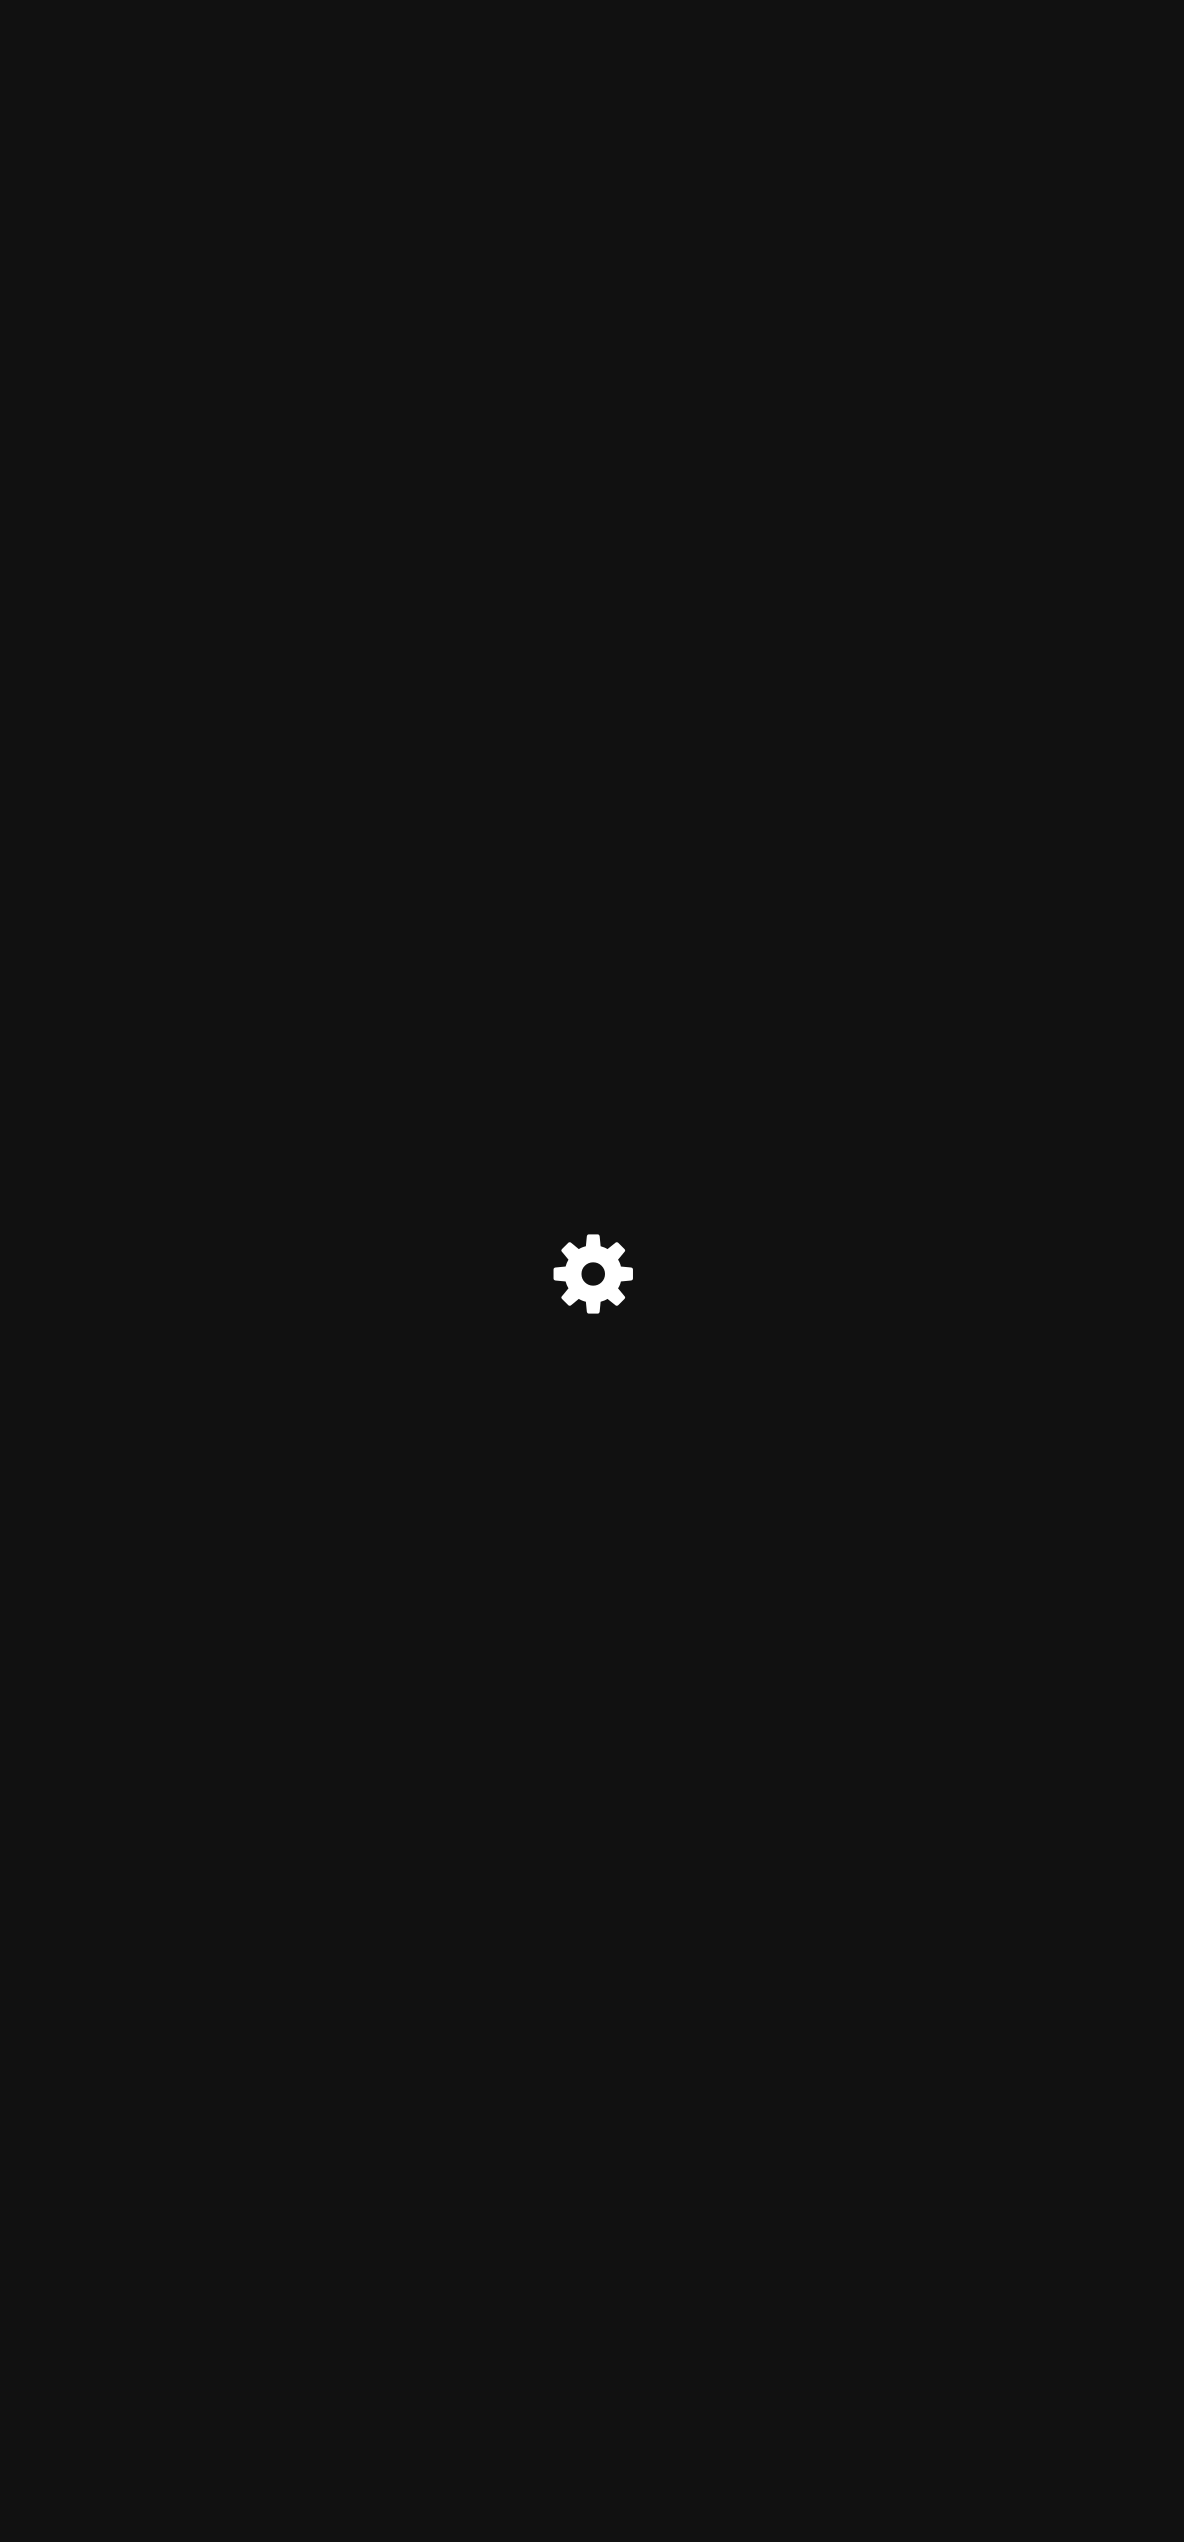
%!PS
<< /PageSize [1184 2542] >> setpagedevice
/rgb { dup -16 bitshift 255 div exch dup -8 bitshift 255 and 255 div exch 255 and 255 div setrgbcolor } def
/picture { 5 dict begin { /h /w /y /x /name } { exch def } forall
  gsave x y translate w h scale
  w h 8 [w 0 0 h 0 0] name (r) file false 3 colorimage grestore end } def
0 2542 translate 1 -1 scale
4 setmiterlimit
16#111111 rgb
0 0 1184 2542 rectfill
(pic1.raw) 553 1234 80 80 picture
showpage
